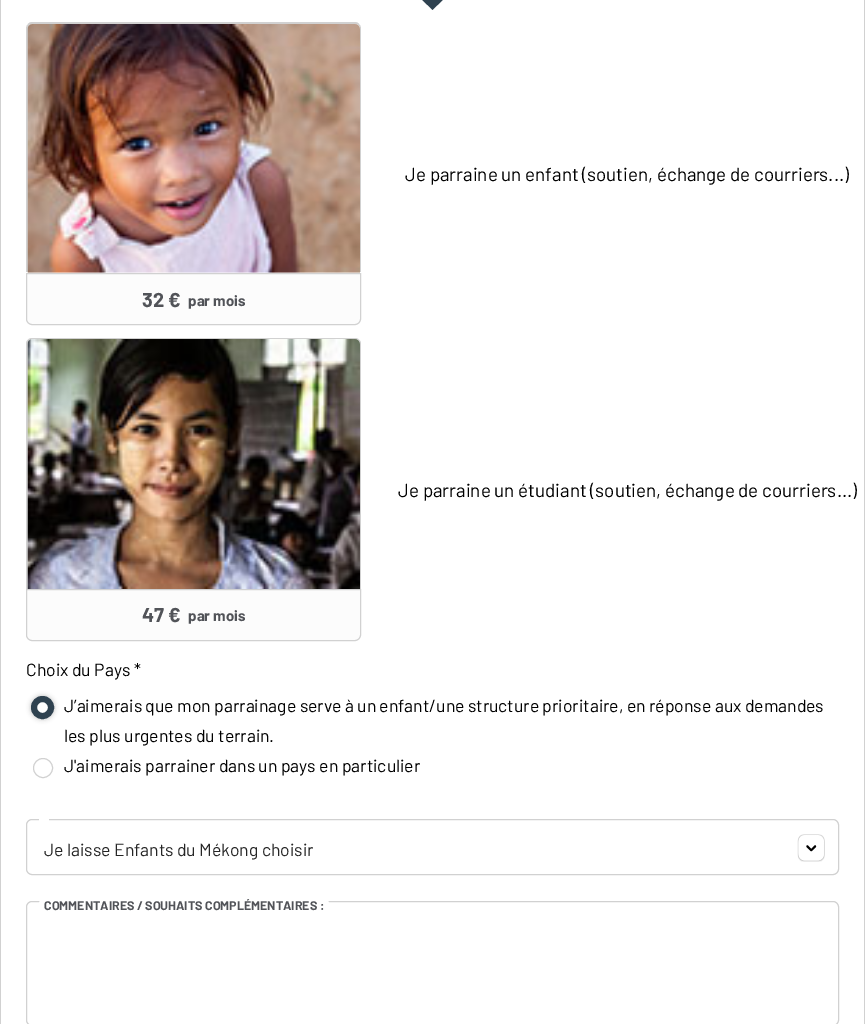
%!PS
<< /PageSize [865 1024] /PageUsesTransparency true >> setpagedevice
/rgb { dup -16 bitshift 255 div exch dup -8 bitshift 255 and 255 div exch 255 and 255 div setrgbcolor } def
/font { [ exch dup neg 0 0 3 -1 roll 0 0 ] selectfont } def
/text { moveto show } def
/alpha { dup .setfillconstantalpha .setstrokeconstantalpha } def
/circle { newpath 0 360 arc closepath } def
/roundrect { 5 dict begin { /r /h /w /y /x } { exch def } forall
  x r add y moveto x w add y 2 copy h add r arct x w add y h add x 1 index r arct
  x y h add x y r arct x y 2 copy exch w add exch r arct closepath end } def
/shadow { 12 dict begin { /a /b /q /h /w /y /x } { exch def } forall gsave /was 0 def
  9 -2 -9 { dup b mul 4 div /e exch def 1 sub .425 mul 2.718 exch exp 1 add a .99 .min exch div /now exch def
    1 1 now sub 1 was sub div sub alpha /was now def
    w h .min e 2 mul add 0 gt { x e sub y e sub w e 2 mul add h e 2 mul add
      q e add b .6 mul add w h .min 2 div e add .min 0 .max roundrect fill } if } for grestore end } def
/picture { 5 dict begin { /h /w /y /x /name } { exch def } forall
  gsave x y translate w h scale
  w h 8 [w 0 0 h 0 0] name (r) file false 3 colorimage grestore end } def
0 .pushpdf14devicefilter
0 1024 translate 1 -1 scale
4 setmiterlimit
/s1 { /Barlow-Regular 18.75 font 16#000000 rgb } def
/s2 { /Barlow-Bold 20 font 16#515358 rgb } def
/s3 { /Barlow-Bold 15 font 16#515358 rgb } def
/s4 { /Barlow-Regular 17.5 font 16#000000 rgb } def
/s5 { /Barlow-Regular 17.5 font 16#252525 rgb } def
/s6 { /Barlow-Bold 12.5 font 16#515358 rgb } def
16#FFFFFF rgb
0 0 865 1024 rectfill
16#D1D1D1 rgb
864 0 1 1024 rectfill
0 0 1 1024 rectfill
16#2F4250 rgb
420 -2.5 moveto 445 -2.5 lineto 432.5 10 lineto closepath fill
s1
(Je parraine un enfant \(soutien, échange de courriers...\)) 405 181 text
16#D1D1D1 rgb
32 22 moveto 355 22 lineto 358 22 361 25 361 29 curveto 361 272 lineto 26 272 lineto 26 29 lineto 26 25 29 22 32 22 curveto closepath 32 24 moveto 355 24 lineto 358 24 360 26 360 29 curveto 360 272 lineto 28 272 lineto 28 29 lineto 28 26 30 24 32 24 curveto closepath eofill
(pic1.raw) 27 24 333 249 picture
16#FCFCFC rgb
26.5 273.5 moveto 360.5 273.5 lineto 360.5 319 lineto 360.5 322 358 324.5 355 324.5 curveto 32 324.5 lineto 29 324.5 26.5 322 26.5 319 curveto closepath gsave fill grestore
16#D1D1D1 rgb
stroke
s2
(32 €) 142 307 text
s3
(par mois) 188 306 text
s1
(Je parraine un étudiant \(soutien, échange de courriers...\)) 398 497 text
16#D1D1D1 rgb
32 338 moveto 355 338 lineto 358 338 361 340 361 344 curveto 361 589 lineto 26 589 lineto 26 344 lineto 26 340 29 338 32 338 curveto closepath 32 339 moveto 355 339 lineto 358 339 360 341 360 344 curveto 360 589 lineto 28 589 lineto 28 344 lineto 28 341 30 339 32 339 curveto closepath eofill
(pic2.raw) 27 339 333 250 picture
16#FCFCFC rgb
26.5 589.5 moveto 360.5 589.5 lineto 360.5 635 lineto 360.5 638 358 640.5 355 640.5 curveto 32 640.5 lineto 29 640.5 26.5 638 26.5 635 curveto closepath gsave fill grestore
16#D1D1D1 rgb
stroke
s2
(47 €) 142 622 text
s3
(par mois) 188 621 text
s4
(Choix du Pays *) 26 676 text
16#D1D1D1 rgb
43 708 9.5 circle stroke
gsave
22 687 moveto 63 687 lineto 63 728 lineto 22 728 lineto closepath 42.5 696 moveto 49 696 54 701 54 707.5 curveto 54 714 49 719 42.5 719 curveto 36 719 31 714 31 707.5 curveto 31 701 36 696 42.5 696 curveto closepath eoclip newpath
16#000000 rgb
31 696 23 23 11.5 2.5 0.25 shadow
grestore
16#2F4250 rgb
6 setlinewidth
42.5 707.5 8.5 circle stroke
s4
(J’aimerais que mon parrainage serve à un enfant/une structure prioritaire, en réponse aux demandes) 64 712 text
(les plus urgentes du terrain.) 64 742 text
16#D1D1D1 rgb
1 setlinewidth
43 768 9.5 circle stroke
s4
(J'aimerais parrainer dans un pays en particulier) 64 772 text
16#D1D1D1 rgb
26.5 819.5 812 55 5.5 roundrect stroke
16#FFFFFF rgb
39 815 10 15 5 roundrect fill
s5
(Je laisse Enfants du Mékong choisir) 44 856 text
(pic3.raw) 797 834 28 28 picture
16#D1D1D1 rgb
26.5 901.5 812 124 5.5 roundrect stroke
16#FFFFFF rgb
39 898 290 15 6 roundrect fill
s6
(COMMENTAIRES / SOUHAITS COMPLÉMENTAIRES :) 44 910 text
.poppdf14devicefilter showpage
